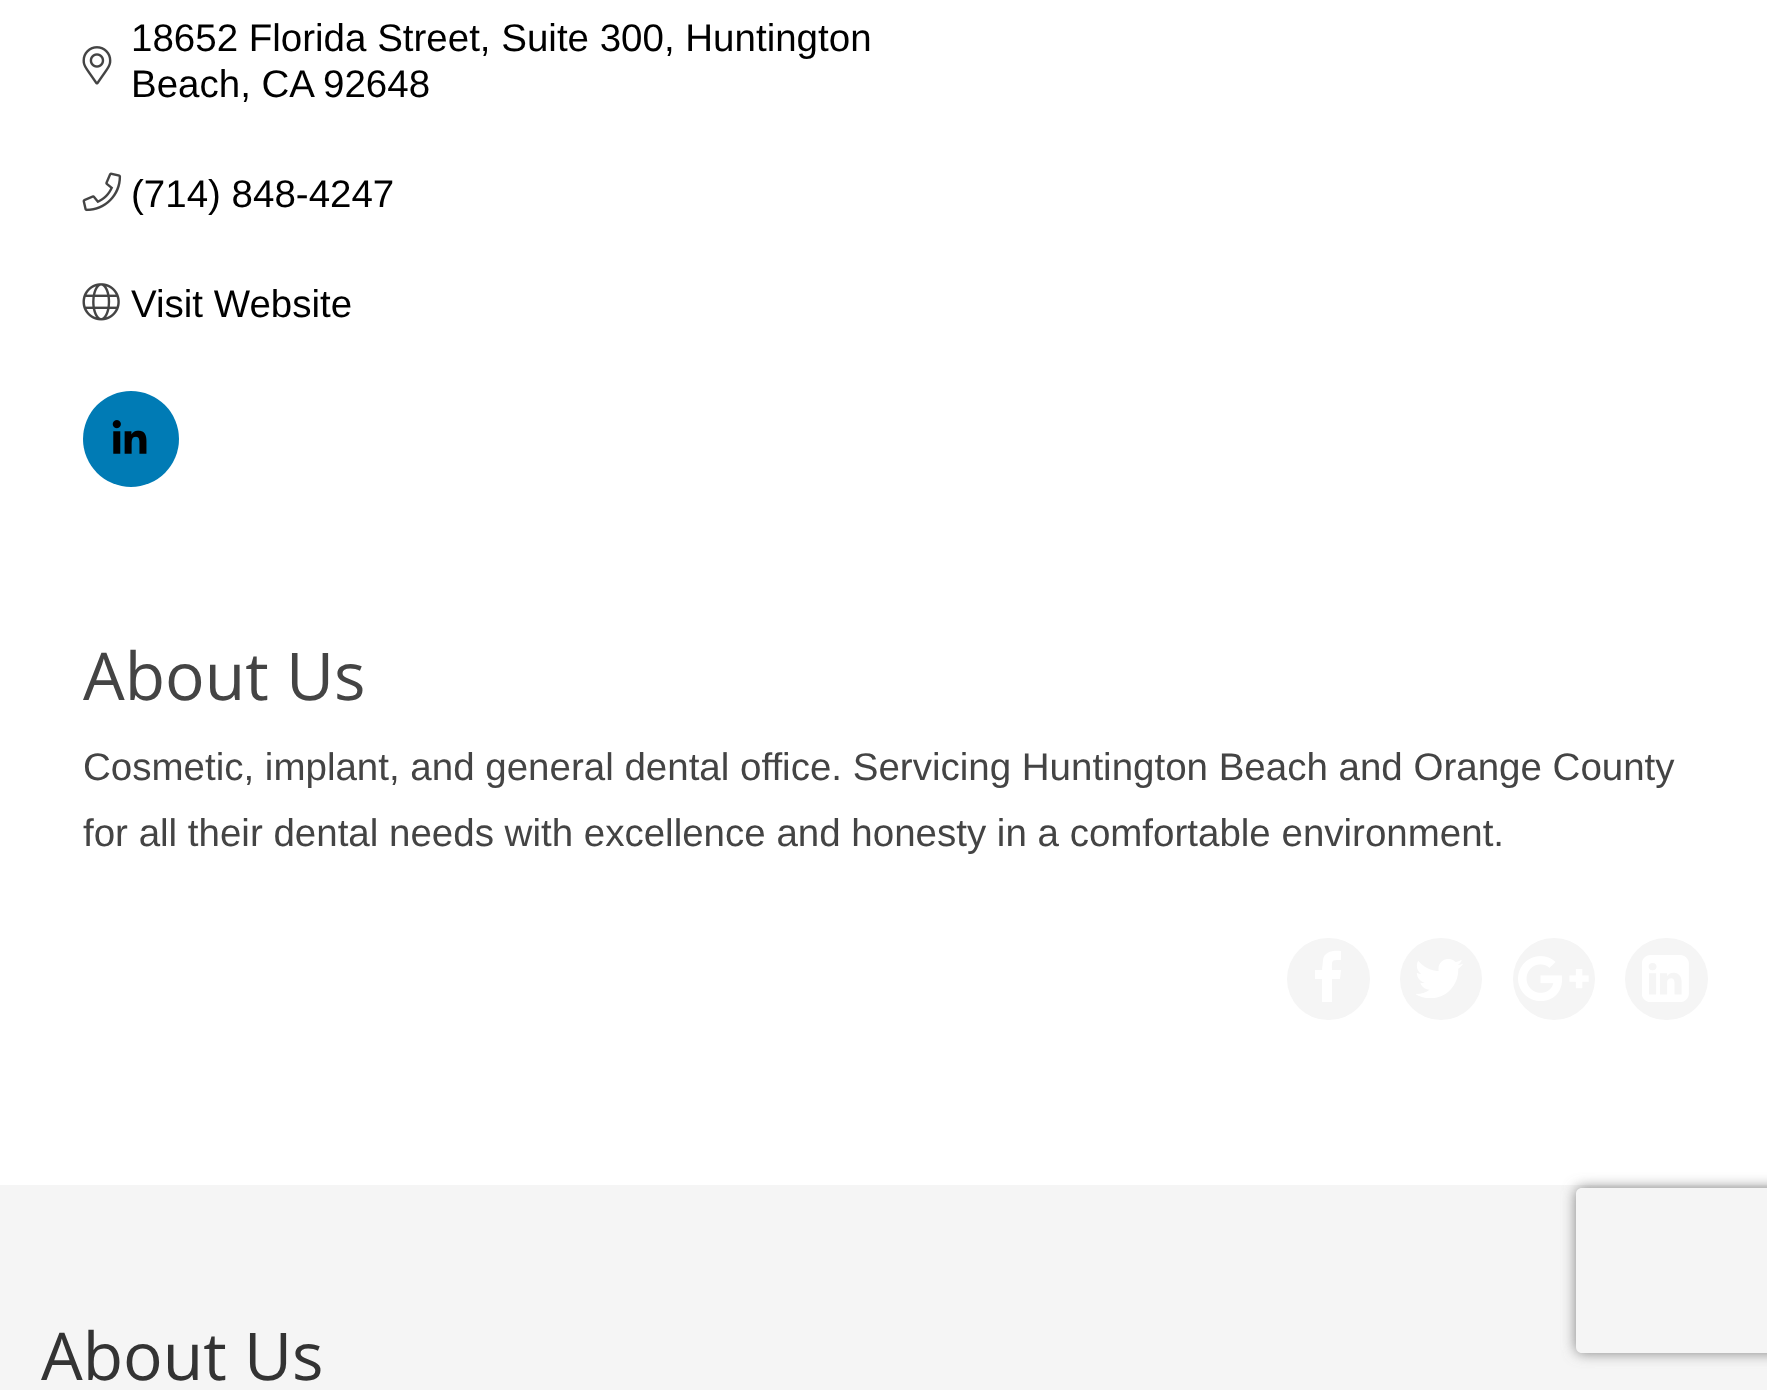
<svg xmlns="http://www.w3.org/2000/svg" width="1767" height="1390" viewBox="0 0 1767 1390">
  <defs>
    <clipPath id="clip1"><path d="M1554 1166H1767V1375H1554ZM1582 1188H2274C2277.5 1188 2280 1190.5 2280 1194V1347C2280 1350.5 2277.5 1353 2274 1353H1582C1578.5 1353 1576 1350.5 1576 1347V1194C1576 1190.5 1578.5 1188 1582 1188Z" clip-rule="evenodd"/></clipPath>
    <filter id="blur1" x="-50%" y="-200%" width="200%" height="500%"><feGaussianBlur stdDeviation="7"/></filter>
  </defs>
  <rect width="100%" height="100%" fill="#ffffff"/>
  <text x="131" y="51" font-family="Liberation Sans" font-size="38.5" fill="#000000">18652 Florida Street, Suite 300, Huntington</text>
  <image x="82" y="46" width="30" height="39" href="img1.png"/>
  <text x="131" y="97" font-family="Liberation Sans" font-size="38.5" fill="#000000">Beach, CA</text>
  <text x="323" y="97" font-family="Liberation Sans" font-size="38.5" fill="#000000">92648</text>
  <image x="82" y="172" width="40" height="40" href="img2.png"/>
  <text x="131" y="207" font-family="Liberation Sans" font-size="38.5" fill="#000000">(714) 848-4247</text>
  <image x="82" y="283" width="38" height="38" href="img3.png"/>
  <text x="131" y="317" font-family="Liberation Sans" font-size="38.5" fill="#000000">Visit Website</text>
  <circle cx="131" cy="439" r="48" fill="#007bb5"/>
  <image x="112" y="420" width="35" height="34" href="img4.png"/>
  <text x="83" y="700" font-family="Open Sans" font-size="66" fill="#444444">About Us</text>
  <text x="83" y="780" font-family="Liberation Sans" font-size="38.5" fill="#444444">Cosmetic, implant, and general dental office. Servicing Huntington Beach and Orange County</text>
  <text x="83" y="846" font-family="Liberation Sans" font-size="38.5" fill="#444444">for all their dental needs with excellence and honesty in a comfortable environment.</text>
  <rect x="1287" y="938" width="83" height="82" rx="41" fill="#f5f5f5"/>
  <path d="M1341 951V960C1331 960 1332 960 1332 970H1341L1340 979H1332V1002H1322V979H1315V970H1322L1323 960C1324 951 1334 950 1341 951Z" fill="#ffffff"/>
  <circle cx="1441" cy="979" r="41" fill="#f5f5f5"/>
  <image x="1416" y="959" width="47" height="39" href="img5.png"/>
  <circle cx="1554" cy="979" r="41" fill="#f5f5f5"/>
  <image x="1518" y="956" width="71" height="45" href="img6.png"/>
  <rect x="1625" y="938" width="83" height="82" rx="41" fill="#f5f5f5"/>
  <image x="1642" y="955" width="47" height="47" href="img7.png"/>
  <rect x="0" y="1185" width="1767" height="205" fill="#f5f5f5"/>
  <text x="41" y="1380" font-family="Open Sans" font-size="66" fill="#333333">About Us</text>
  <g clip-path="url(#clip1)">
    <rect x="1576" y="1188" width="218" height="165" rx="6" fill="#808080" filter="url(#blur1)"/>
  </g>
</svg>
